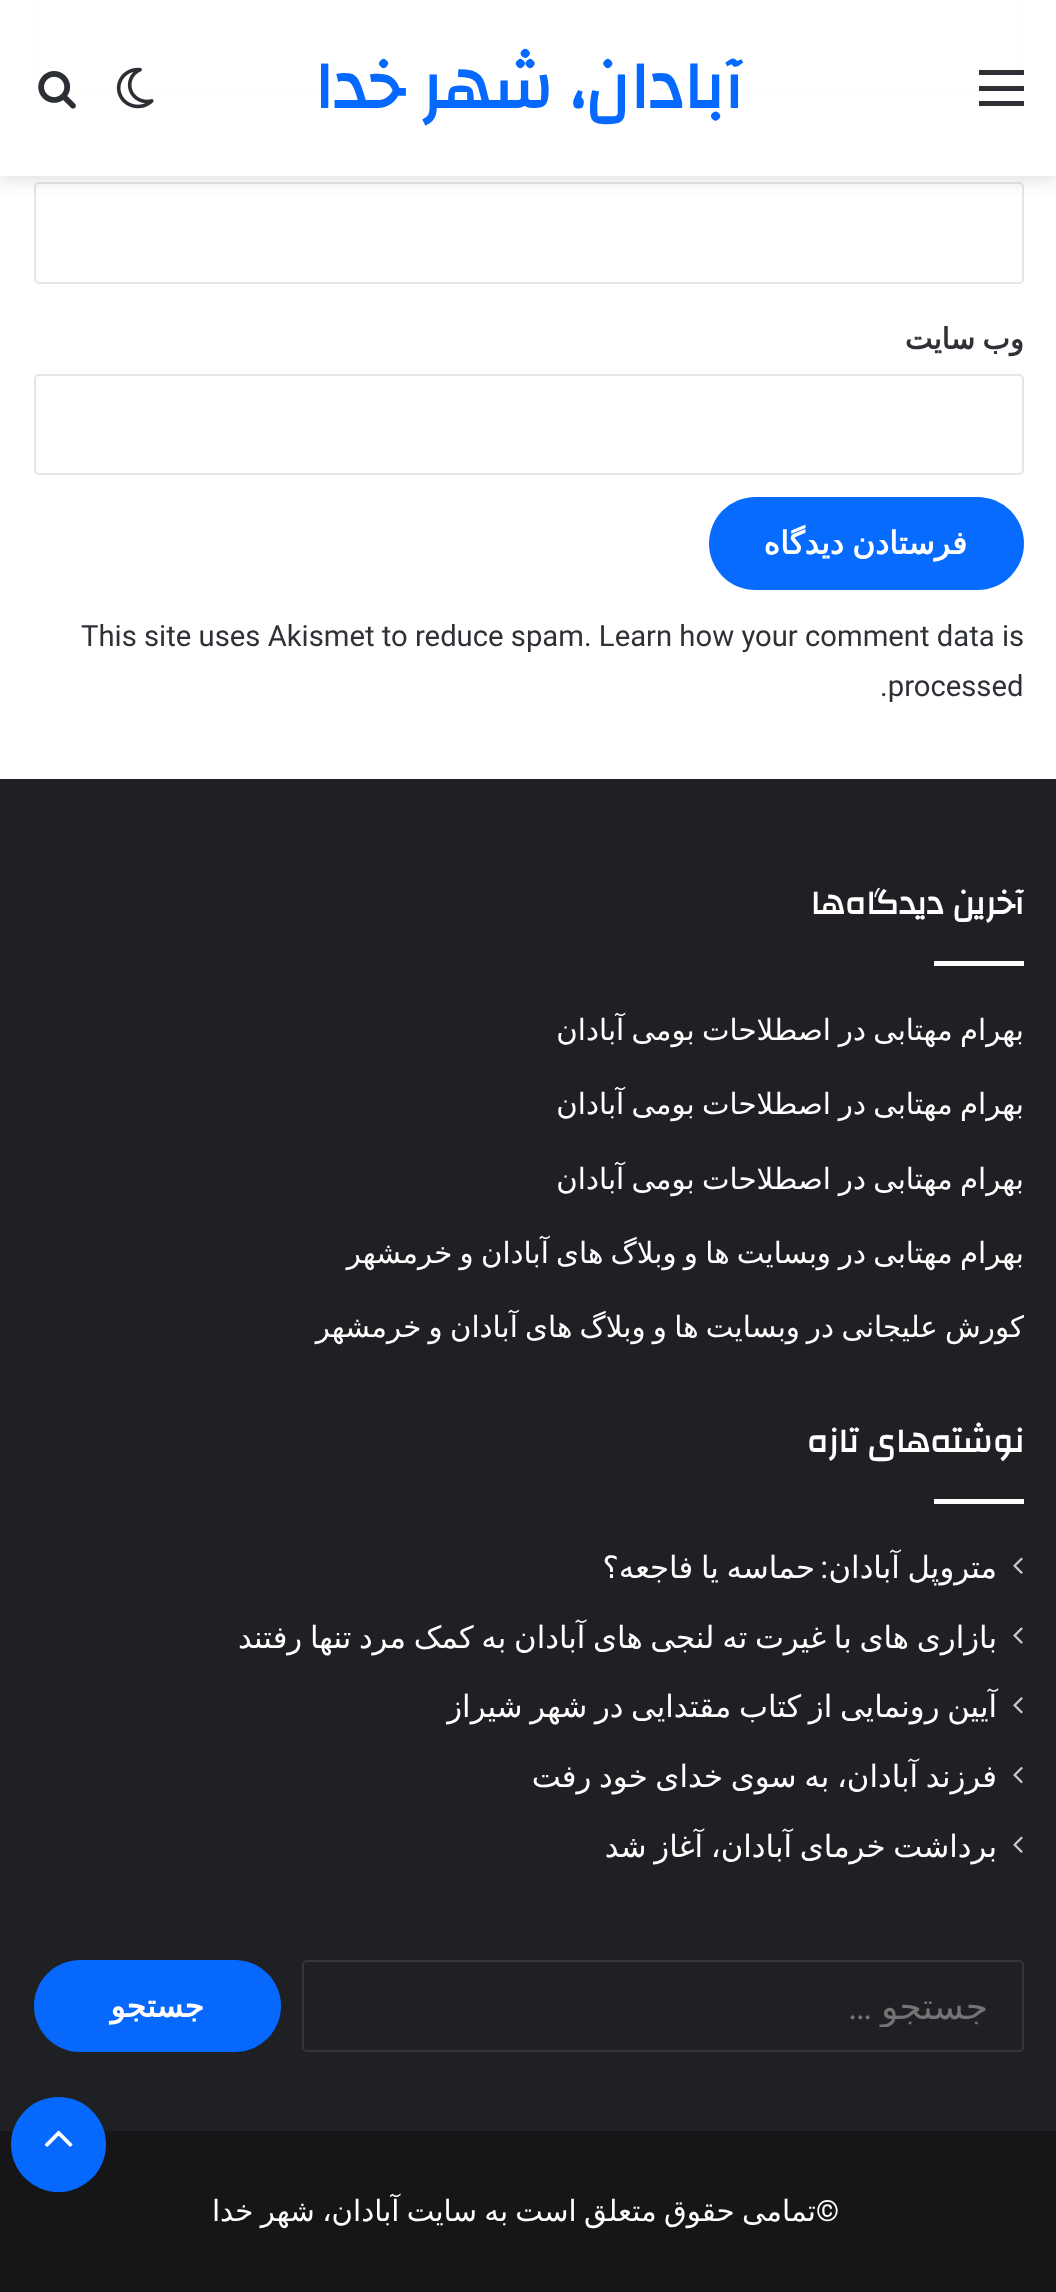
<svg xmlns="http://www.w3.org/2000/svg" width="1056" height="2292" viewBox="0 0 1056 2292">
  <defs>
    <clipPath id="clip1"><path d="M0 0H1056V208H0ZM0 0H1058V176H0Z" clip-rule="evenodd"/></clipPath>
    <filter id="blur1" x="-50%" y="-200%" width="200%" height="500%"><feGaussianBlur stdDeviation="9"/></filter>
    <clipPath id="clip2"><rect x="347" y="1985" width="641" height="42"/></clipPath>
  </defs>
  <rect width="100%" height="100%" fill="#ffffff"/>
  <rect x="35" y="-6" width="988" height="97" rx="4" fill="none" stroke="#e6e6e6" stroke-width="2"/>
  <rect x="35" y="183" width="988" height="100" rx="4" fill="none" stroke="#e6e6e6" stroke-width="2"/>
  <g clip-path="url(#clip1)">
    <rect x="0" y="5" width="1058" height="175" fill="#636363" fill-opacity="0.2" filter="url(#blur1)"/>
  </g>
  <rect x="0" y="0" width="1056" height="176" fill="#ffffff" fill-opacity="0.95"/>
  <rect x="979" y="86" width="45" height="5" fill="#2c2f34"/>
  <rect x="979" y="70" width="45" height="5" fill="#2c2f34"/>
  <rect x="979" y="101" width="45" height="5" fill="#2c2f34"/>
  <text x="743" y="108" font-family="Changa" font-size="67.5" font-weight="bold" direction="rtl" fill="#0669ff">آبادان، شهر خدا</text>
  <image x="116" y="67" width="38" height="42" href="img1.png"/>
  <image x="38" y="71" width="38" height="38" href="img2.png"/>
  <text x="1024" y="349" word-spacing="-2" font-family="DejaVu Sans" font-size="29.25" font-weight="bold" direction="rtl" fill="#2e3136">وب‌ سایت</text>
  <rect x="35" y="375" width="988" height="99" rx="4" fill="none" stroke="#e6e6e6" stroke-width="2"/>
  <rect x="709" y="497" width="315" height="93" rx="46.5" fill="#086bff"/>
  <text x="967" y="554" word-spacing="-2" font-family="DejaVu Sans" font-size="31.5" font-weight="bold" direction="rtl" fill="#ffffff">فرستادن دیدگاه</text>
  <text x="81" y="646" font-family="Roboto" font-size="29.25" fill="#2e3136">This site uses Akismet to reduce spam. Learn how your comment data is</text>
  <text x="880" y="696" font-family="Roboto" font-size="29.25" fill="#2e3136">.processed</text>
  <rect x="0" y="779" width="1056" height="1352" fill="#1f2024"/>
  <text x="1024" y="914" font-family="Changa" font-size="33.75" font-weight="bold" direction="rtl" fill="#ffffff">آخرین دیدگاه‌ها</text>
  <rect x="934" y="961" width="90" height="5" fill="#fdfdfd"/>
  <text x="1024" y="1040" word-spacing="-2" font-family="DejaVu Sans" font-size="29.25" direction="rtl" fill="#ffffff">بهرام مهتابی</text>
  <text x="866" y="1040" font-family="DejaVu Sans" font-size="29.25" direction="rtl" fill="#ffffff">در</text>
  <text x="831" y="1040" word-spacing="-2" font-family="DejaVu Sans" font-size="29.25" direction="rtl" fill="#ffffff">اصطلاحات بومی آبادان</text>
  <text x="1024" y="1114" word-spacing="-2" font-family="DejaVu Sans" font-size="29.25" direction="rtl" fill="#ffffff">بهرام مهتابی</text>
  <text x="866" y="1114" font-family="DejaVu Sans" font-size="29.25" direction="rtl" fill="#ffffff">در</text>
  <text x="831" y="1114" word-spacing="-2" font-family="DejaVu Sans" font-size="29.25" direction="rtl" fill="#ffffff">اصطلاحات بومی آبادان</text>
  <text x="1024" y="1189" word-spacing="-2" font-family="DejaVu Sans" font-size="29.25" direction="rtl" fill="#ffffff">بهرام مهتابی</text>
  <text x="866" y="1189" font-family="DejaVu Sans" font-size="29.25" direction="rtl" fill="#ffffff">در</text>
  <text x="831" y="1189" word-spacing="-2" font-family="DejaVu Sans" font-size="29.25" direction="rtl" fill="#ffffff">اصطلاحات بومی آبادان</text>
  <text x="1024" y="1263" word-spacing="-2" font-family="DejaVu Sans" font-size="29.25" direction="rtl" fill="#ffffff">بهرام مهتابی</text>
  <text x="866" y="1263" font-family="DejaVu Sans" font-size="29.25" direction="rtl" fill="#ffffff">در</text>
  <text x="831" y="1263" word-spacing="-2" font-family="DejaVu Sans" font-size="29.25" direction="rtl" fill="#ffffff">وبسایت ها و وبلاگ های آبادان و خرمشهر</text>
  <text x="1024" y="1337" word-spacing="-2" font-family="DejaVu Sans" font-size="29.25" direction="rtl" fill="#ffffff">کورش علیجانی</text>
  <text x="834" y="1337" font-family="DejaVu Sans" font-size="29.25" direction="rtl" fill="#ffffff">در</text>
  <text x="800" y="1337" word-spacing="-2" font-family="DejaVu Sans" font-size="29.25" direction="rtl" fill="#ffffff">وبسایت ها و وبلاگ های آبادان و خرمشهر</text>
  <text x="1024" y="1452" font-family="Changa" font-size="33.75" font-weight="bold" direction="rtl" fill="#ffffff">نوشته‌های تازه</text>
  <rect x="934" y="1499" width="90" height="5" fill="#fdfdfd"/>
  <image x="1013" y="1557" width="10" height="17" href="img3.png"/>
  <text x="997" y="1578" word-spacing="-2" font-family="DejaVu Sans" font-size="30.75" direction="rtl" fill="#ffffff">متروپل آبادان</text>
  <text x="828" y="1578" font-family="Roboto" font-size="30.75" direction="rtl" fill="#ffffff">:</text>
  <text x="815" y="1578" word-spacing="-2" font-family="DejaVu Sans" font-size="30.75" direction="rtl" fill="#ffffff">حماسه یا فاجعه؟</text>
  <image x="1013" y="1627" width="10" height="17" href="img4.png"/>
  <text x="997" y="1648" word-spacing="-2.1" font-family="DejaVu Sans" font-size="30.75" direction="rtl" fill="#ffffff">بازاری های با غیرت ته لنجی های آبادان به کمک مرد تنها رفتند</text>
  <image x="1013" y="1697" width="10" height="17" href="img5.png"/>
  <text x="997" y="1717" word-spacing="-2.1" font-family="DejaVu Sans" font-size="30.75" direction="rtl" fill="#ffffff">آیین رونمایی از کتاب مقتدایی در شهر شیراز</text>
  <image x="1013" y="1766" width="10" height="18" href="img6.png"/>
  <text x="997" y="1787" word-spacing="-2.1" font-family="DejaVu Sans" font-size="30.75" direction="rtl" fill="#ffffff">فرزند آبادان، به سوی خدای خود رفت</text>
  <image x="1013" y="1836" width="10" height="17" href="img3.png"/>
  <text x="997" y="1857" word-spacing="-2.1" font-family="DejaVu Sans" font-size="30.75" direction="rtl" fill="#ffffff">برداشت خرمای آبادان، آغاز شد</text>
  <rect x="303" y="1961" width="720" height="90" rx="4" fill="none" stroke="#35363a" stroke-width="2"/>
  <g clip-path="url(#clip2)">
    <text x="988" y="2019" font-family="DejaVu Sans" font-size="36" direction="rtl" fill="#747474">جستجو</text>
  </g>
  <text x="872" y="2019" font-family="Roboto" font-size="36" direction="rtl" fill="#747474">…</text>
  <rect x="34" y="1960" width="247" height="92" rx="46" fill="#0668fd"/>
  <text x="204" y="2017" font-family="DejaVu Sans" font-size="31.5" font-weight="bold" direction="rtl" fill="#ffffff">جستجو</text>
  <rect x="0" y="2131" width="1056" height="161" fill="#161619"/>
  <text x="816" y="2221" font-family="Roboto" font-size="29.25" fill="#ffffff">©</text>
  <text x="816" y="2221" word-spacing="-2" font-family="DejaVu Sans" font-size="29.25" direction="rtl" fill="#ffffff">تمامی حقوق متعلق است به</text>
  <text x="477" y="2221" word-spacing="-2" font-family="DejaVu Sans" font-size="29.25" direction="rtl" fill="#ffffff">سایت آبادان، شهر خدا</text>
  <circle cx="58.5" cy="2144.5" r="47.5" fill="#0669ff"/>
  <image x="44" y="2130" width="29" height="17" href="img7.png"/>
</svg>
